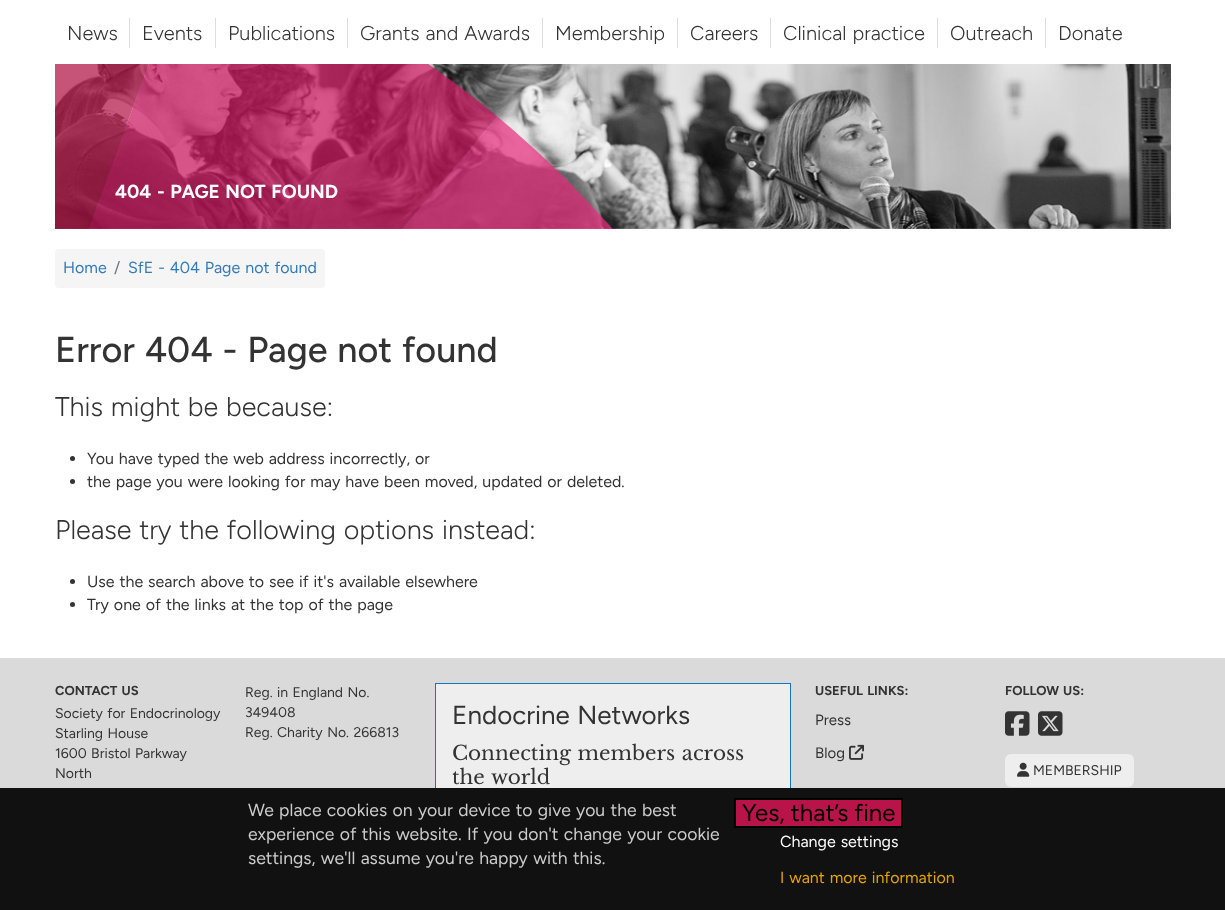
<svg xmlns="http://www.w3.org/2000/svg" width="1225" height="910" viewBox="0 0 1225 910">
  <rect width="100%" height="100%" fill="#ffffff"/>
  <rect x="129" y="18" width="1" height="30" fill="#dddddd"/>
  <text x="67" y="40" font-family="Figtree" font-size="20" font-weight="300" fill="#333333">News</text>
  <rect x="215" y="18" width="1" height="30" fill="#dddddd"/>
  <text x="142" y="40" font-family="Figtree" font-size="20" font-weight="300" fill="#333333">Events</text>
  <rect x="347" y="18" width="1" height="30" fill="#dddddd"/>
  <text x="228" y="40" font-family="Figtree" font-size="20" font-weight="300" fill="#333333">Publications</text>
  <rect x="542" y="18" width="1" height="30" fill="#dddddd"/>
  <text x="360" y="40" word-spacing="1" font-family="Figtree" font-size="20" font-weight="300" fill="#333333">Grants and Awards</text>
  <rect x="677" y="18" width="1" height="30" fill="#dddddd"/>
  <text x="555" y="40" font-family="Figtree" font-size="20" font-weight="300" fill="#333333">Membership</text>
  <rect x="770" y="18" width="1" height="30" fill="#dddddd"/>
  <text x="690" y="40" font-family="Figtree" font-size="20" font-weight="300" fill="#333333">Careers</text>
  <rect x="937" y="18" width="1" height="30" fill="#dddddd"/>
  <text x="783" y="40" word-spacing="1" font-family="Figtree" font-size="20" font-weight="300" fill="#333333">Clinical practice</text>
  <rect x="1045" y="18" width="1" height="30" fill="#dddddd"/>
  <text x="950" y="40" font-family="Figtree" font-size="20" font-weight="300" fill="#333333">Outreach</text>
  <text x="1058" y="40" font-family="Figtree" font-size="20" font-weight="300" fill="#333333">Donate</text>
  <image x="55" y="64" width="1116" height="165" href="img1.png"/>
  <text x="115" y="198" word-spacing="1" font-family="Figtree" font-size="19" font-weight="bold" fill="#ffffff">404 - PAGE NOT FOUND</text>
  <rect x="55" y="249" width="270" height="39" rx="4" fill="#f5f5f5"/>
  <text x="63" y="273" font-family="Figtree" font-size="16" fill="#337ab7">Home</text>
  <text x="114" y="273" font-family="Figtree" font-size="16" fill="#6c757d">/</text>
  <text x="128" y="273" word-spacing="1" font-family="Figtree" font-size="16" fill="#337ab7">SfE - 404 Page not found</text>
  <text x="55" y="362" word-spacing="1" font-family="Figtree" font-size="36" font-weight="500" fill="#333333">Error 404 - Page not found</text>
  <text x="55" y="416" word-spacing="1" font-family="Figtree" font-size="27" font-weight="300" fill="#333333">This might be because:</text>
  <circle cx="72.5" cy="458.5" r="2.5" fill="#333333"/>
  <text x="87" y="464" word-spacing="1" font-family="Figtree" font-size="16" fill="#333333">You have typed the web address incorrectly, or</text>
  <circle cx="72.5" cy="481.5" r="2.5" fill="#333333"/>
  <text x="87" y="487" word-spacing="1" font-family="Figtree" font-size="16" fill="#333333">the page you were looking for may have been moved, updated or deleted.</text>
  <text x="55" y="539" word-spacing="1" font-family="Figtree" font-size="27" font-weight="300" fill="#333333">Please try the following options instead:</text>
  <circle cx="72.5" cy="581.5" r="2.5" fill="#333333"/>
  <text x="87" y="587" word-spacing="1" font-family="Figtree" font-size="16" fill="#333333">Use the search above to see if it's available elsewhere</text>
  <circle cx="72.5" cy="604.5" r="2.5" fill="#333333"/>
  <text x="87" y="610" word-spacing="1" font-family="Figtree" font-size="16" fill="#333333">Try one of the links at the top of the page</text>
  <rect x="0" y="658" width="1225" height="130" fill="#dadada"/>
  <text x="55" y="695" word-spacing="1" font-family="Figtree" font-size="13" font-weight="bold" fill="#333333">CONTACT US</text>
  <text x="55" y="718" word-spacing="1" font-family="Figtree" font-size="14" fill="#333333">Society for Endocrinology</text>
  <text x="55" y="738" word-spacing="1" font-family="Figtree" font-size="14" fill="#333333">Starling House</text>
  <text x="55" y="758" word-spacing="1" font-family="Figtree" font-size="14" fill="#333333">1600 Bristol Parkway</text>
  <text x="55" y="778" font-family="Figtree" font-size="14" fill="#333333">North</text>
  <text x="245" y="697" word-spacing="1" font-family="Figtree" font-size="14" fill="#333333">Reg. in England No.</text>
  <text x="245" y="717" font-family="Figtree" font-size="14" fill="#333333">349408</text>
  <text x="245" y="737" word-spacing="1" font-family="Figtree" font-size="14" fill="#333333">Reg. Charity No. 266813</text>
  <rect x="436" y="684" width="354" height="104" fill="#eeeeee"/>
  <rect x="435.5" y="683.5" width="355" height="170" fill="none" stroke="#1475ba"/>
  <text x="452" y="724" word-spacing="1" font-family="Figtree" font-size="26" fill="#333333">Endocrine Networks</text>
  <text x="452" y="760" word-spacing="1" font-family="Libre Baskerville" font-size="20" fill="#333333">Connecting members across</text>
  <text x="452" y="784" word-spacing="1" font-family="Libre Baskerville" font-size="20" fill="#333333">the world</text>
  <text x="815" y="695" word-spacing="1" font-family="Figtree" font-size="13" font-weight="bold" fill="#333333">USEFUL LINKS:</text>
  <text x="815" y="725" font-family="Figtree" font-size="15" fill="#333333">Press</text>
  <text x="815" y="758" font-family="Figtree" font-size="15" fill="#333333">Blog</text>
  <image x="849" y="744" width="15" height="16" href="img2.png"/>
  <text x="1005" y="695" word-spacing="1" font-family="Figtree" font-size="13" font-weight="bold" fill="#333333">FOLLOW US:</text>
  <image x="1005" y="711" width="25" height="25" href="img3.png"/>
  <image x="1038" y="711" width="25" height="25" href="img4.png"/>
  <rect x="1005" y="754" width="129" height="33" rx="6" fill="#eeeeee"/>
  <image x="1017" y="762" width="13" height="15" href="img5.png"/>
  <text x="1033" y="775" font-family="Figtree" font-size="14" fill="#333333">MEMBERSHIP</text>
  <rect x="0" y="788" width="1225" height="122" fill="#111111"/>
  <text x="248" y="816" word-spacing="1" font-family="Figtree" font-size="17.6" fill="#cccccc">We place cookies on your device to give you the best</text>
  <text x="248" y="840" word-spacing="1" font-family="Figtree" font-size="17.6" fill="#cccccc">experience of this website. If you don't change your cookie</text>
  <text x="248" y="864" word-spacing="1" font-family="Figtree" font-size="17.6" fill="#cccccc">settings, we'll assume you're happy with this.</text>
  <rect x="735" y="799" width="167" height="28" fill="#b81449" stroke="#000000" stroke-width="2"/>
  <text x="742" y="821" font-family="Figtree" font-size="24" fill="#000000">Yes, that’s fine</text>
  <text x="780" y="847" word-spacing="1" font-family="Figtree" font-size="16" fill="#ffffff">Change settings</text>
  <text x="780" y="883" word-spacing="1" font-family="Figtree" font-size="16" fill="#e7a500">I want more information</text>
</svg>
